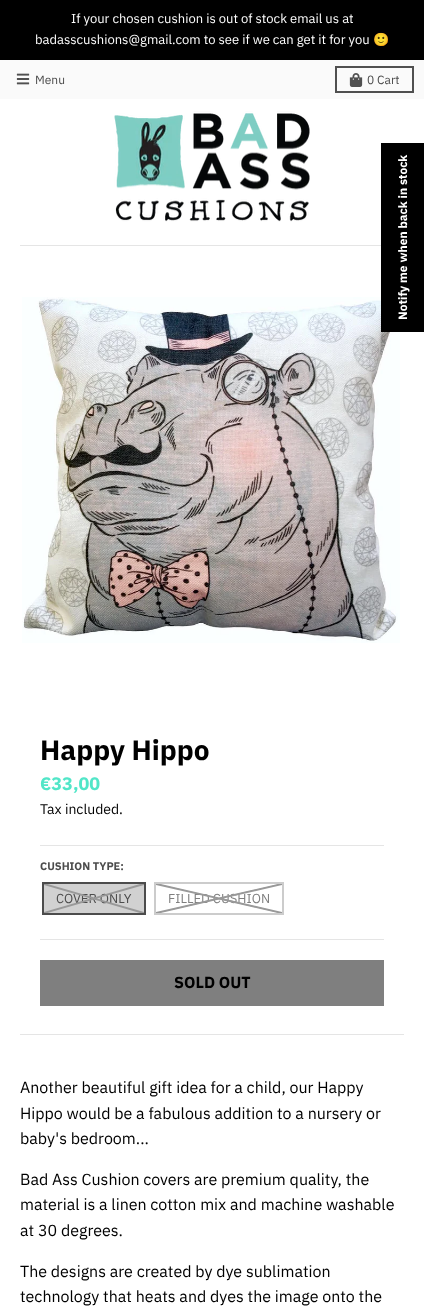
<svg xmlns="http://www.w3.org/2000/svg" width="424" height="1306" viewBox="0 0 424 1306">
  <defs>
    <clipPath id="clip1"><rect x="44" y="884" width="100" height="29"/></clipPath>
    <clipPath id="clip2"><rect x="156" y="884" width="126" height="29"/></clipPath>
  </defs>
  <rect width="100%" height="100%" fill="#ffffff"/>
  <rect x="0" y="0" width="424" height="60" fill="#000000"/>
  <text x="71" y="23" font-family="IBM Plex Sans" font-size="13" fill="#ffffff">If your chosen cushion is out of stock email us at</text>
  <text x="35" y="44" font-family="IBM Plex Sans" font-size="13" fill="#ffffff">badasscushions@gmail.com to see if we can get it for you</text>
  <text x="373" y="44" font-family="Noto Color Emoji" font-size="13" fill="#ffffff">🙂</text>
  <rect x="0" y="60" width="424" height="39" fill="#fafafa"/>
  <image x="16" y="73" width="14" height="12" href="img1.png"/>
  <text x="35" y="84" font-family="IBM Plex Sans" font-size="12" fill="#4c4c4c">Menu</text>
  <rect x="336" y="67" width="77" height="25" fill="none" stroke="#505050" stroke-width="2"/>
  <image x="349" y="73" width="14" height="14" href="img2.png"/>
  <text x="367" y="84" font-family="IBM Plex Sans" font-size="12" fill="#4c4c4c">0 Cart</text>
  <image x="114" y="111" width="196" height="111" href="img3.png"/>
  <rect x="20" y="245" width="361" height="1" fill="#e5e5e5"/>
  <image x="22" y="297" width="378" height="346" href="img4.png"/>
  <rect x="20" y="1034" width="384" height="1" fill="#e5e5e5"/>
  <text x="40" y="760" font-family="IBM Plex Sans" font-size="28" font-weight="bold" fill="#000000">Happy Hippo</text>
  <rect x="40" y="845" width="344" height="1" fill="#e5e5e5"/>
  <text x="40" y="790" font-family="IBM Plex Sans" font-size="18" font-weight="bold" fill="#51e6c8">€33,00</text>
  <text x="40" y="814" font-family="IBM Plex Sans" font-size="14" fill="#000000">Tax included.</text>
  <rect x="40" y="939" width="344" height="1" fill="#e5e5e5"/>
  <text x="40" y="870" font-family="IBM Plex Sans" font-size="11" font-weight="bold" fill="#4c4c4c">CUSHION TYPE:</text>
  <rect x="43" y="883" width="102" height="31" fill="#d1d1d1" stroke="#4c4c4c" stroke-width="2"/>
  <text x="56" y="903" font-family="IBM Plex Sans" font-size="13" fill="#4c4c4c">COVER ONLY</text>
  <g clip-path="url(#clip1)">
    <path d="M142 884H143.5V884.5L95 898.5L143.5 912.5V913H142L94 899L45.5 913H44V912.5L92.5 898.5L44 884.5V884H45.5L94 898Z" fill="none" stroke="#999999" stroke-width="1.1"/>
  </g>
  <rect x="155" y="883" width="128" height="31" fill="none" stroke="#cccccc" stroke-width="2"/>
  <text x="168" y="903" font-family="IBM Plex Sans" font-size="13" fill="#7f7f7f">FILLED CUSHION</text>
  <path d="M280 884H282L221 898L282 913H280L219 899L158 913H156L217 898L156 884H158L219 898Z" fill="#979797"/>
  <g clip-path="url(#clip2)">
    <path d="M280.5 884H282V884.5L221 898.5L282 912.5V913H280.5L219 899L158 913H156V912.5L217.5 898.5L156 884.5V884H158L219 898Z" fill="none" stroke="#999999" stroke-width="1.2"/>
  </g>
  <rect x="40" y="960" width="344" height="46" fill="#7f7f7f"/>
  <text x="174" y="988" font-family="IBM Plex Sans" font-size="16" font-weight="bold" fill="#000000">SOLD OUT</text>
  <text x="20" y="1093" font-family="IBM Plex Sans" font-size="16" fill="#000000">Another beautiful gift idea for a child, our Happy</text>
  <text x="20" y="1119" font-family="IBM Plex Sans" font-size="16" fill="#000000">Hippo would be a fabulous addition to a nursery or</text>
  <text x="20" y="1144" font-family="IBM Plex Sans" font-size="16" fill="#000000">baby's bedroom...</text>
  <text x="20" y="1185" font-family="IBM Plex Sans" font-size="16" fill="#000000">Bad Ass Cushion covers are premium quality, the</text>
  <text x="20" y="1210" font-family="IBM Plex Sans" font-size="16" fill="#000000">material is a linen cotton mix and machine washable</text>
  <text x="20" y="1236" font-family="IBM Plex Sans" font-size="16" fill="#000000">at 30 degrees.</text>
  <text x="20" y="1277" font-family="IBM Plex Sans" font-size="16" fill="#000000">The designs are created by dye sublimation</text>
  <text x="20" y="1302" font-family="IBM Plex Sans" font-size="16" fill="#000000">technology that heats and dyes the image onto the</text>
  <rect x="381" y="143" width="43" height="189" fill="#000000"/>
  <text x="407" y="320" transform="rotate(-90 407 320)" font-family="IBM Plex Sans" font-size="12" font-weight="bold" fill="#ffffff">Notify me when back in stock</text>
</svg>
